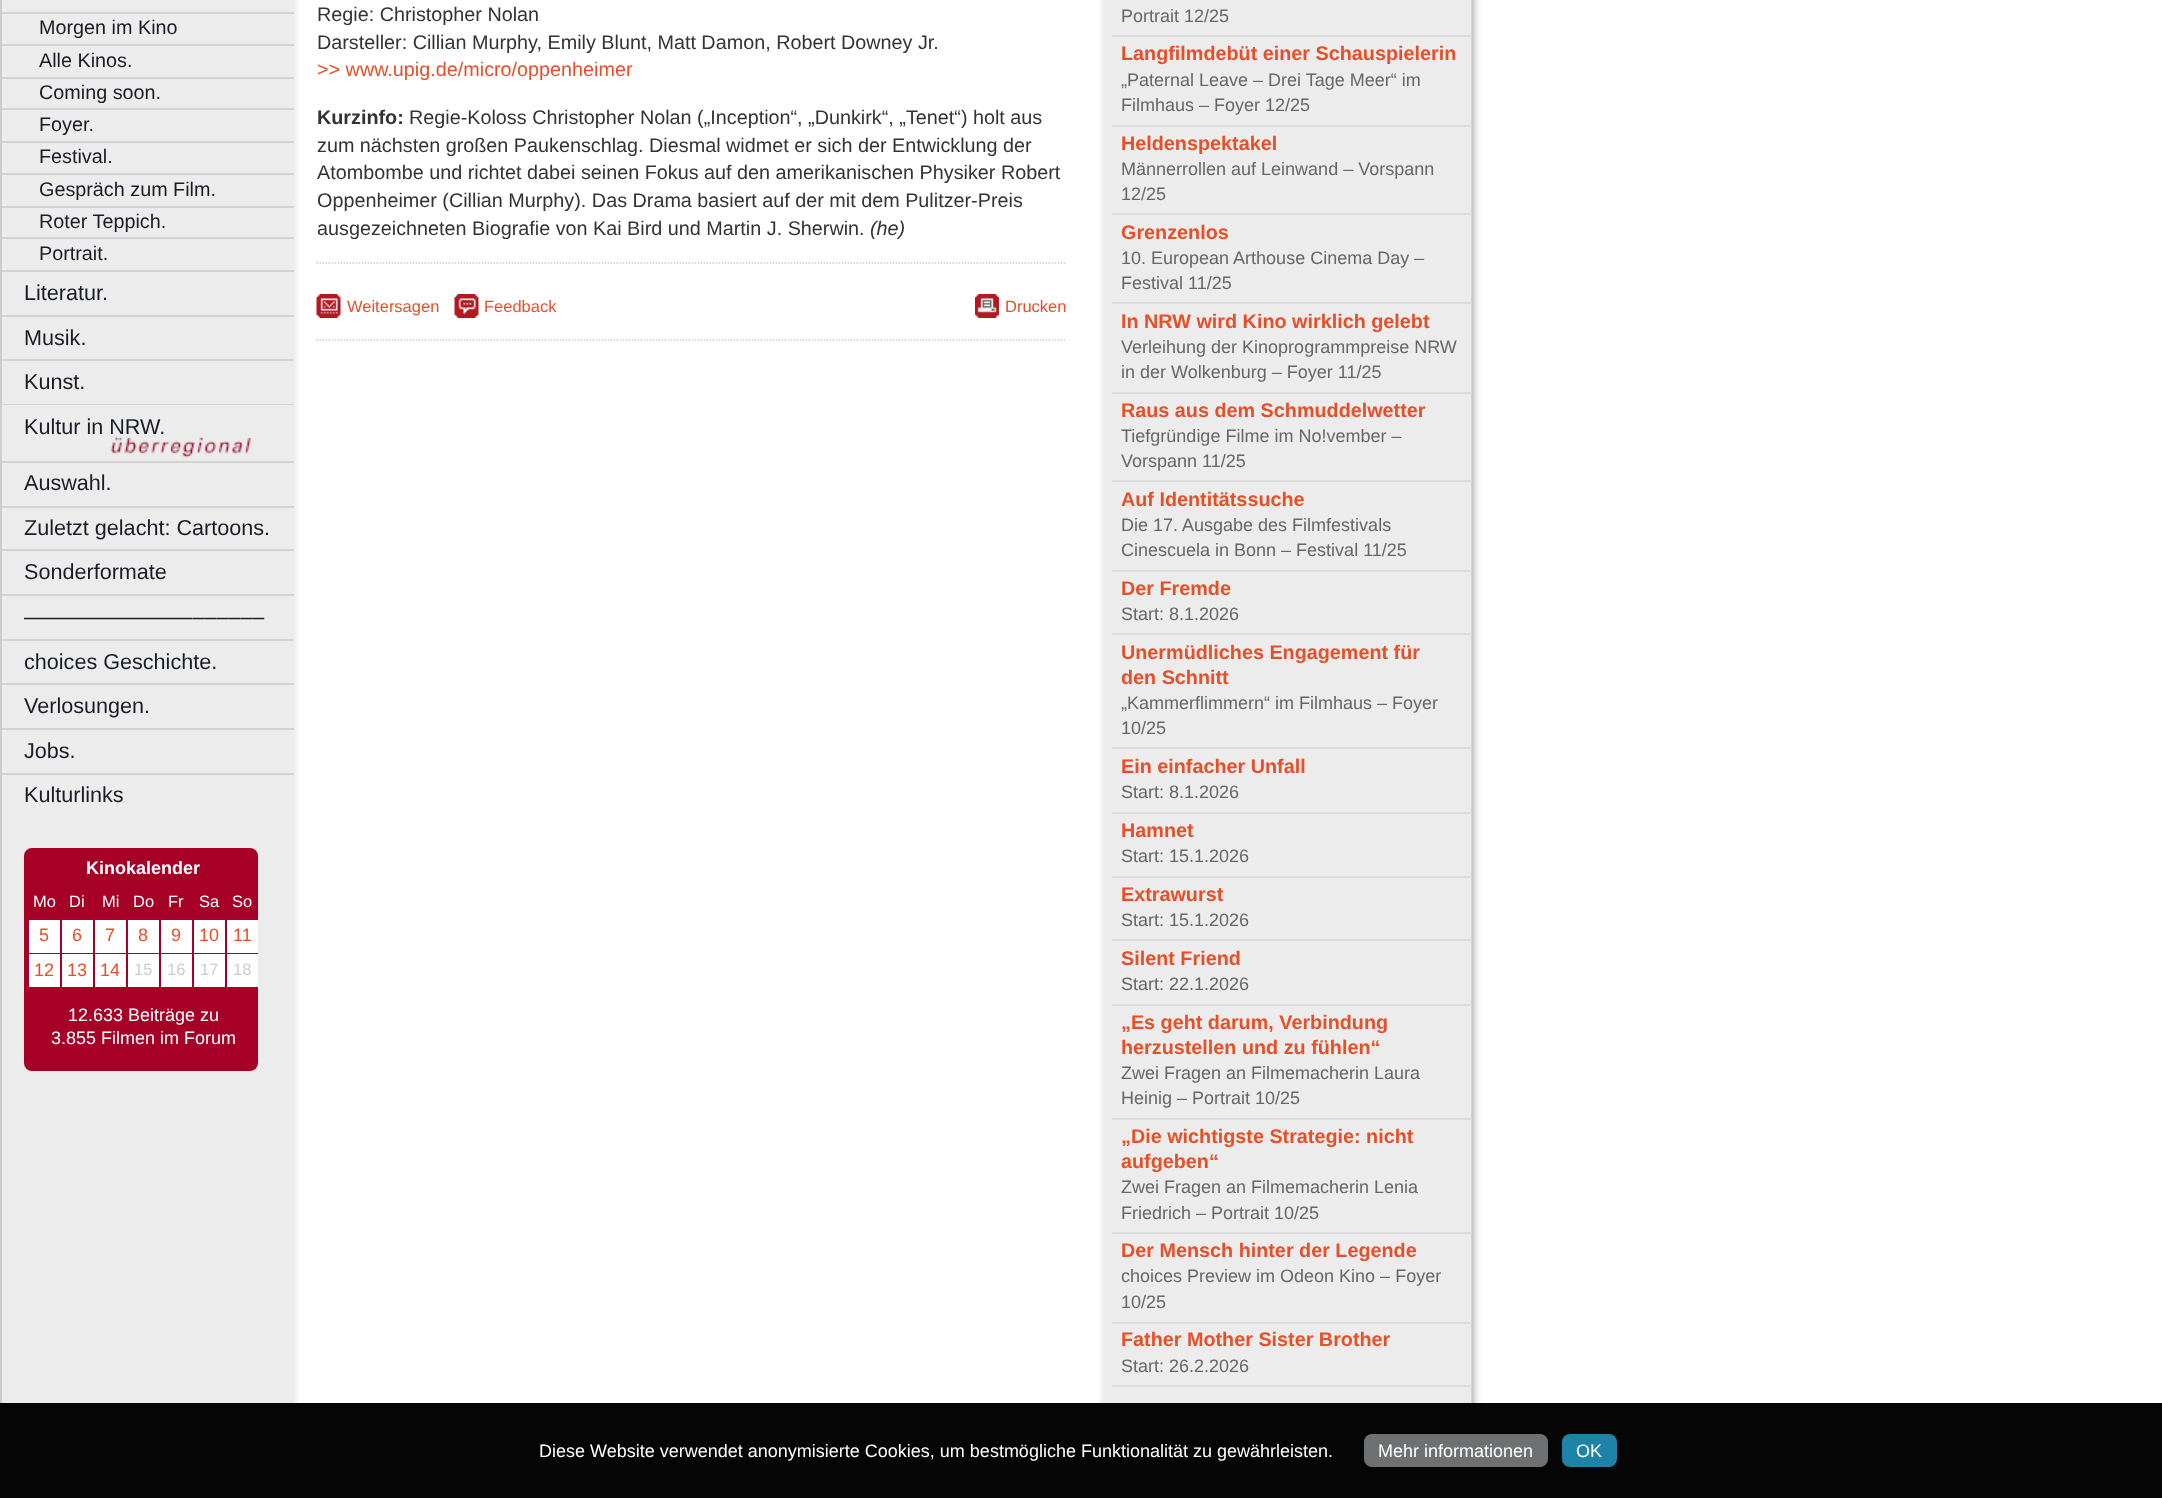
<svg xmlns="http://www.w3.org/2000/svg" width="2162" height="1498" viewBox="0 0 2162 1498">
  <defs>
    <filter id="blur1" x="-50%" y="-200%" width="200%" height="500%"><feGaussianBlur stdDeviation="4"/></filter>
  </defs>
  <rect width="100%" height="100%" fill="#ffffff"/>
  <rect x="2" y="-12" width="1471" height="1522" fill="#999999" filter="url(#blur1)"/>
  <image x="2" y="0" width="1470" height="1403" href="img1.png"/>
  <rect x="0" y="0" width="2" height="1403" fill="#cccccc"/>
  <rect x="2" y="12" width="292" height="2" fill="#d3d3d3"/>
  <text x="39" y="34" font-family="Liberation Sans" font-size="19.8" fill="#191c26">Morgen im Kino</text>
  <rect x="2" y="44" width="292" height="2" fill="#d3d3d3"/>
  <text x="39" y="67" font-family="Liberation Sans" font-size="19.8" fill="#191c26">Alle Kinos.</text>
  <rect x="2" y="77" width="292" height="2" fill="#d3d3d3"/>
  <text x="39" y="99" font-family="Liberation Sans" font-size="19.8" fill="#191c26">Coming soon.</text>
  <rect x="2" y="108" width="292" height="2" fill="#d3d3d3"/>
  <text x="39" y="131" font-family="Liberation Sans" font-size="19.8" fill="#191c26">Foyer.</text>
  <rect x="2" y="141" width="292" height="2" fill="#d3d3d3"/>
  <text x="39" y="163" font-family="Liberation Sans" font-size="19.8" fill="#191c26">Festival.</text>
  <rect x="2" y="173" width="292" height="2" fill="#d3d3d3"/>
  <text x="39" y="196" font-family="Liberation Sans" font-size="19.8" fill="#191c26">Gespräch zum Film.</text>
  <rect x="2" y="206" width="292" height="2" fill="#d3d3d3"/>
  <text x="39" y="228" font-family="Liberation Sans" font-size="19.8" fill="#191c26">Roter Teppich.</text>
  <rect x="2" y="237" width="292" height="2" fill="#d3d3d3"/>
  <text x="39" y="260" font-family="Liberation Sans" font-size="19.8" fill="#191c26">Portrait.</text>
  <rect x="2" y="270" width="292" height="2" fill="#d3d3d3"/>
  <text x="24" y="300" font-family="Liberation Sans" font-size="21.6" fill="#191c26">Literatur.</text>
  <rect x="2" y="315" width="292" height="2" fill="#d3d3d3"/>
  <text x="24" y="345" font-family="Liberation Sans" font-size="21.6" fill="#191c26">Musik.</text>
  <rect x="2" y="359" width="292" height="2" fill="#d3d3d3"/>
  <text x="24" y="389" font-family="Liberation Sans" font-size="21.6" fill="#191c26">Kunst.</text>
  <rect x="2" y="404" width="292" height="1" fill="#d3d3d3"/>
  <image x="1" y="405" width="293" height="54" href="img2.png"/>
  <text x="24" y="434" font-family="Liberation Sans" font-size="21.6" fill="#191c26">Kultur in NRW.</text>
  <rect x="2" y="461" width="292" height="2" fill="#d3d3d3"/>
  <text x="24" y="490" font-family="Liberation Sans" font-size="21.6" fill="#191c26">Auswahl.</text>
  <rect x="2" y="506" width="292" height="2" fill="#d3d3d3"/>
  <text x="24" y="535" font-family="Liberation Sans" font-size="21.6" fill="#191c26">Zuletzt gelacht: Cartoons.</text>
  <rect x="2" y="549" width="292" height="2" fill="#d3d3d3"/>
  <text x="24" y="579" font-family="Liberation Sans" font-size="21.6" fill="#191c26">Sonderformate</text>
  <rect x="2" y="594" width="292" height="2" fill="#d3d3d3"/>
  <text x="24" y="624" font-family="Liberation Sans" font-size="21.6" fill="#191c26">––––––––––––––––––––</text>
  <rect x="2" y="639" width="292" height="2" fill="#d3d3d3"/>
  <text x="24" y="669" font-family="Liberation Sans" font-size="21.6" fill="#191c26">choices Geschichte.</text>
  <rect x="2" y="683" width="292" height="2" fill="#d3d3d3"/>
  <text x="24" y="713" font-family="Liberation Sans" font-size="21.6" fill="#191c26">Verlosungen.</text>
  <rect x="2" y="728" width="292" height="2" fill="#d3d3d3"/>
  <text x="24" y="758" font-family="Liberation Sans" font-size="21.6" fill="#191c26">Jobs.</text>
  <rect x="2" y="773" width="292" height="2" fill="#d3d3d3"/>
  <text x="24" y="802" font-family="Liberation Sans" font-size="21.6" fill="#191c26">Kulturlinks</text>
  <rect x="24" y="848" width="234" height="223" rx="8" fill="#a60027"/>
  <text x="86" y="874" font-family="Liberation Sans" font-size="18" font-weight="bold" fill="#ffffff">Kinokalender</text>
  <text x="33" y="907" font-family="Liberation Sans" font-size="16.5" fill="#ffffff">Mo</text>
  <text x="69" y="907" font-family="Liberation Sans" font-size="16.5" fill="#ffffff">Di</text>
  <text x="102" y="907" font-family="Liberation Sans" font-size="16.5" fill="#ffffff">Mi</text>
  <text x="133" y="907" font-family="Liberation Sans" font-size="16.5" fill="#ffffff">Do</text>
  <text x="168" y="907" font-family="Liberation Sans" font-size="16.5" fill="#ffffff">Fr</text>
  <text x="199" y="907" font-family="Liberation Sans" font-size="16.5" fill="#ffffff">Sa</text>
  <text x="232" y="907" font-family="Liberation Sans" font-size="16.5" fill="#ffffff">So</text>
  <rect x="29" y="920" width="31" height="33" fill="#ffffff"/>
  <text x="39" y="941" font-family="Liberation Sans" font-size="18" fill="#e55029">5</text>
  <rect x="62" y="920" width="31" height="33" fill="#ffffff"/>
  <text x="72" y="941" font-family="Liberation Sans" font-size="18" fill="#e55029">6</text>
  <rect x="95" y="920" width="31" height="33" fill="#ffffff"/>
  <text x="105" y="941" font-family="Liberation Sans" font-size="18" fill="#e55029">7</text>
  <rect x="128" y="920" width="31" height="33" fill="#ffffff"/>
  <text x="138" y="941" font-family="Liberation Sans" font-size="18" fill="#e55029">8</text>
  <rect x="161" y="920" width="31" height="33" fill="#ffffff"/>
  <text x="171" y="941" font-family="Liberation Sans" font-size="18" fill="#e55029">9</text>
  <rect x="194" y="920" width="31" height="33" fill="#ffffff"/>
  <text x="199" y="941" font-family="Liberation Sans" font-size="18" fill="#e55029">10</text>
  <rect x="227" y="920" width="31" height="33" fill="#ffffff"/>
  <text x="233" y="941" font-family="Liberation Sans" font-size="18" fill="#e55029">11</text>
  <rect x="29" y="954" width="31" height="33" fill="#ffffff"/>
  <text x="34" y="976" font-family="Liberation Sans" font-size="18" fill="#e55029">12</text>
  <rect x="62" y="954" width="31" height="33" fill="#ffffff"/>
  <text x="67" y="976" font-family="Liberation Sans" font-size="18" fill="#e55029">13</text>
  <rect x="95" y="954" width="31" height="33" fill="#ffffff"/>
  <text x="100" y="976" font-family="Liberation Sans" font-size="18" fill="#e55029">14</text>
  <rect x="128" y="954" width="31" height="33" fill="#ffffff"/>
  <text x="134" y="975" font-family="Liberation Sans" font-size="16.5" fill="#cccccc">15</text>
  <rect x="161" y="954" width="31" height="33" fill="#ffffff"/>
  <text x="167" y="975" font-family="Liberation Sans" font-size="16.5" fill="#cccccc">16</text>
  <rect x="194" y="954" width="31" height="33" fill="#ffffff"/>
  <text x="200" y="975" font-family="Liberation Sans" font-size="16.5" fill="#cccccc">17</text>
  <rect x="227" y="954" width="31" height="33" fill="#ffffff"/>
  <text x="233" y="975" font-family="Liberation Sans" font-size="16.5" fill="#cccccc">18</text>
  <text x="68" y="1021" font-family="Liberation Sans" font-size="18" fill="#ffffff">12.633 Beiträge zu</text>
  <text x="51" y="1044" font-family="Liberation Sans" font-size="18" fill="#ffffff">3.855 Filmen im Forum</text>
  <text x="317" y="21" font-family="Liberation Sans" font-size="19.8" fill="#333333">Regie: Christopher Nolan</text>
  <text x="317" y="49" font-family="Liberation Sans" font-size="19.8" fill="#333333">Darsteller: Cillian Murphy, Emily Blunt, Matt Damon, Robert Downey Jr.</text>
  <text x="317" y="76" font-family="Liberation Sans" font-size="19.8" fill="#e55029">&gt;&gt; www.upig.de/micro/oppenheimer</text>
  <text x="317" y="124" font-family="Liberation Sans" font-size="19.8" font-weight="bold" fill="#333333">Kurzinfo:</text>
  <text x="409" y="124" font-family="Liberation Sans" font-size="19.8" fill="#333333">Regie-Koloss Christopher Nolan („Inception“, „Dunkirk“, „Tenet“) holt aus</text>
  <text x="317" y="152" font-family="Liberation Sans" font-size="19.8" fill="#333333">zum nächsten großen Paukenschlag. Diesmal widmet er sich der Entwicklung der</text>
  <text x="317" y="179" font-family="Liberation Sans" font-size="19.8" fill="#333333">Atombombe und richtet dabei seinen Fokus auf den amerikanischen Physiker Robert</text>
  <text x="317" y="207" font-family="Liberation Sans" font-size="19.8" fill="#333333">Oppenheimer (Cillian Murphy). Das Drama basiert auf der mit dem Pulitzer-Preis</text>
  <text x="317" y="235" font-family="Liberation Sans" font-size="19.8" fill="#333333">ausgezeichneten Biografie von Kai Bird und Martin J. Sherwin.</text>
  <text x="870" y="235" font-family="Liberation Sans" font-size="19.8" font-style="italic" fill="#333333">(he)</text>
  <path d="M316.5 263H1066.5" fill="none" stroke="#cccccc" stroke-width="1.5" stroke-dasharray="1.5 1.5"/>
  <image x="316" y="294" width="25" height="24" href="img3.png"/>
  <text x="347" y="312" font-family="Liberation Sans" font-size="16.5" fill="#e55029">Weitersagen</text>
  <image x="454" y="294" width="25" height="24" href="img4.png"/>
  <text x="484" y="312" font-family="Liberation Sans" font-size="16.5" fill="#e55029">Feedback</text>
  <image x="975" y="294" width="24" height="24" href="img5.png"/>
  <text x="1005" y="312" font-family="Liberation Sans" font-size="16.5" fill="#e55029">Drucken</text>
  <path d="M316.5 340H1066.5" fill="none" stroke="#cccccc" stroke-width="1.5" stroke-dasharray="1.5 1.5"/>
  <rect x="1112" y="35" width="360" height="2" fill="#dcdcdc"/>
  <text x="1121" y="22" font-family="Liberation Sans" font-size="18" fill="#666666">Portrait 12/25</text>
  <rect x="1112" y="125" width="360" height="2" fill="#dcdcdc"/>
  <text x="1121" y="60" font-family="Liberation Sans" font-size="19.8" font-weight="bold" fill="#e55029">Langfilmdebüt einer Schauspielerin</text>
  <text x="1121" y="86" font-family="Liberation Sans" font-size="18" fill="#666666">„Paternal Leave – Drei Tage Meer“ im</text>
  <text x="1121" y="111" font-family="Liberation Sans" font-size="18" fill="#666666">Filmhaus – Foyer 12/25</text>
  <rect x="1112" y="213" width="360" height="2" fill="#dcdcdc"/>
  <text x="1121" y="150" font-family="Liberation Sans" font-size="19.8" font-weight="bold" fill="#e55029">Heldenspektakel</text>
  <text x="1121" y="175" font-family="Liberation Sans" font-size="18" fill="#666666">Männerrollen auf Leinwand – Vorspann</text>
  <text x="1121" y="200" font-family="Liberation Sans" font-size="18" fill="#666666">12/25</text>
  <rect x="1112" y="302" width="360" height="2" fill="#dcdcdc"/>
  <text x="1121" y="239" font-family="Liberation Sans" font-size="19.8" font-weight="bold" fill="#e55029">Grenzenlos</text>
  <text x="1121" y="264" font-family="Liberation Sans" font-size="18" fill="#666666">10. European Arthouse Cinema Day –</text>
  <text x="1121" y="289" font-family="Liberation Sans" font-size="18" fill="#666666">Festival 11/25</text>
  <rect x="1112" y="392" width="360" height="2" fill="#dcdcdc"/>
  <text x="1121" y="328" font-family="Liberation Sans" font-size="19.8" font-weight="bold" fill="#e55029">In NRW wird Kino wirklich gelebt</text>
  <text x="1121" y="353" font-family="Liberation Sans" font-size="18" fill="#666666">Verleihung der Kinoprogrammpreise NRW</text>
  <text x="1121" y="378" font-family="Liberation Sans" font-size="18" fill="#666666">in der Wolkenburg – Foyer 11/25</text>
  <rect x="1112" y="480" width="360" height="2" fill="#dcdcdc"/>
  <text x="1121" y="417" font-family="Liberation Sans" font-size="19.8" font-weight="bold" fill="#e55029">Raus aus dem Schmuddelwetter</text>
  <text x="1121" y="442" font-family="Liberation Sans" font-size="18" fill="#666666">Tiefgründige Filme im No!vember –</text>
  <text x="1121" y="467" font-family="Liberation Sans" font-size="18" fill="#666666">Vorspann 11/25</text>
  <rect x="1112" y="570" width="360" height="2" fill="#dcdcdc"/>
  <text x="1121" y="506" font-family="Liberation Sans" font-size="19.8" font-weight="bold" fill="#e55029">Auf Identitätssuche</text>
  <text x="1121" y="531" font-family="Liberation Sans" font-size="18" fill="#666666">Die 17. Ausgabe des Filmfestivals</text>
  <text x="1121" y="556" font-family="Liberation Sans" font-size="18" fill="#666666">Cinescuela in Bonn – Festival 11/25</text>
  <rect x="1112" y="633" width="360" height="2" fill="#dcdcdc"/>
  <text x="1121" y="595" font-family="Liberation Sans" font-size="19.8" font-weight="bold" fill="#e55029">Der Fremde</text>
  <text x="1121" y="620" font-family="Liberation Sans" font-size="18" fill="#666666">Start: 8.1.2026</text>
  <rect x="1112" y="747" width="360" height="2" fill="#dcdcdc"/>
  <text x="1121" y="659" font-family="Liberation Sans" font-size="19.8" font-weight="bold" fill="#e55029">Unermüdliches Engagement für</text>
  <text x="1121" y="684" font-family="Liberation Sans" font-size="19.8" font-weight="bold" fill="#e55029">den Schnitt</text>
  <text x="1121" y="709" font-family="Liberation Sans" font-size="18" fill="#666666">„Kammerflimmern“ im Filmhaus – Foyer</text>
  <text x="1121" y="734" font-family="Liberation Sans" font-size="18" fill="#666666">10/25</text>
  <rect x="1112" y="812" width="360" height="2" fill="#dcdcdc"/>
  <text x="1121" y="773" font-family="Liberation Sans" font-size="19.8" font-weight="bold" fill="#e55029">Ein einfacher Unfall</text>
  <text x="1121" y="798" font-family="Liberation Sans" font-size="18" fill="#666666">Start: 8.1.2026</text>
  <rect x="1112" y="876" width="360" height="2" fill="#dcdcdc"/>
  <text x="1121" y="837" font-family="Liberation Sans" font-size="19.8" font-weight="bold" fill="#e55029">Hamnet</text>
  <text x="1121" y="862" font-family="Liberation Sans" font-size="18" fill="#666666">Start: 15.1.2026</text>
  <rect x="1112" y="939" width="360" height="2" fill="#dcdcdc"/>
  <text x="1121" y="901" font-family="Liberation Sans" font-size="19.8" font-weight="bold" fill="#e55029">Extrawurst</text>
  <text x="1121" y="926" font-family="Liberation Sans" font-size="18" fill="#666666">Start: 15.1.2026</text>
  <rect x="1112" y="1004" width="360" height="2" fill="#dcdcdc"/>
  <text x="1121" y="965" font-family="Liberation Sans" font-size="19.8" font-weight="bold" fill="#e55029">Silent Friend</text>
  <text x="1121" y="990" font-family="Liberation Sans" font-size="18" fill="#666666">Start: 22.1.2026</text>
  <rect x="1112" y="1118" width="360" height="2" fill="#dcdcdc"/>
  <text x="1121" y="1029" font-family="Liberation Sans" font-size="19.8" font-weight="bold" fill="#e55029">„Es geht darum, Verbindung</text>
  <text x="1121" y="1054" font-family="Liberation Sans" font-size="19.8" font-weight="bold" fill="#e55029">herzustellen und zu fühlen“</text>
  <text x="1121" y="1079" font-family="Liberation Sans" font-size="18" fill="#666666">Zwei Fragen an Filmemacherin Laura</text>
  <text x="1121" y="1104" font-family="Liberation Sans" font-size="18" fill="#666666">Heinig – Portrait 10/25</text>
  <rect x="1112" y="1232" width="360" height="2" fill="#dcdcdc"/>
  <text x="1121" y="1143" font-family="Liberation Sans" font-size="19.8" font-weight="bold" fill="#e55029">„Die wichtigste Strategie: nicht</text>
  <text x="1121" y="1168" font-family="Liberation Sans" font-size="19.8" font-weight="bold" fill="#e55029">aufgeben“</text>
  <text x="1121" y="1193" font-family="Liberation Sans" font-size="18" fill="#666666">Zwei Fragen an Filmemacherin Lenia</text>
  <text x="1121" y="1219" font-family="Liberation Sans" font-size="18" fill="#666666">Friedrich – Portrait 10/25</text>
  <rect x="1112" y="1322" width="360" height="2" fill="#dcdcdc"/>
  <text x="1121" y="1257" font-family="Liberation Sans" font-size="19.8" font-weight="bold" fill="#e55029">Der Mensch hinter der Legende</text>
  <text x="1121" y="1282" font-family="Liberation Sans" font-size="18" fill="#666666">choices Preview im Odeon Kino – Foyer</text>
  <text x="1121" y="1308" font-family="Liberation Sans" font-size="18" fill="#666666">10/25</text>
  <rect x="1112" y="1385" width="360" height="2" fill="#dcdcdc"/>
  <text x="1121" y="1346" font-family="Liberation Sans" font-size="19.8" font-weight="bold" fill="#e55029">Father Mother Sister Brother</text>
  <text x="1121" y="1372" font-family="Liberation Sans" font-size="18" fill="#666666">Start: 26.2.2026</text>
  <rect x="0" y="1403" width="2162" height="95" fill="#050505"/>
  <text x="539" y="1457" font-family="Liberation Sans" font-size="18" fill="#ffffff">Diese Website verwendet anonymisierte Cookies, um bestmögliche Funktionalität zu gewährleisten.</text>
  <rect x="1364" y="1434" width="184" height="33" rx="8" fill="#6e7071"/>
  <text x="1378" y="1457" font-family="Liberation Sans" font-size="18" fill="#ffffff">Mehr informationen</text>
  <rect x="1562" y="1434" width="55" height="33" rx="8" fill="#1f83a8"/>
  <text x="1576" y="1457" font-family="Liberation Sans" font-size="18" fill="#ffffff">OK</text>
</svg>
